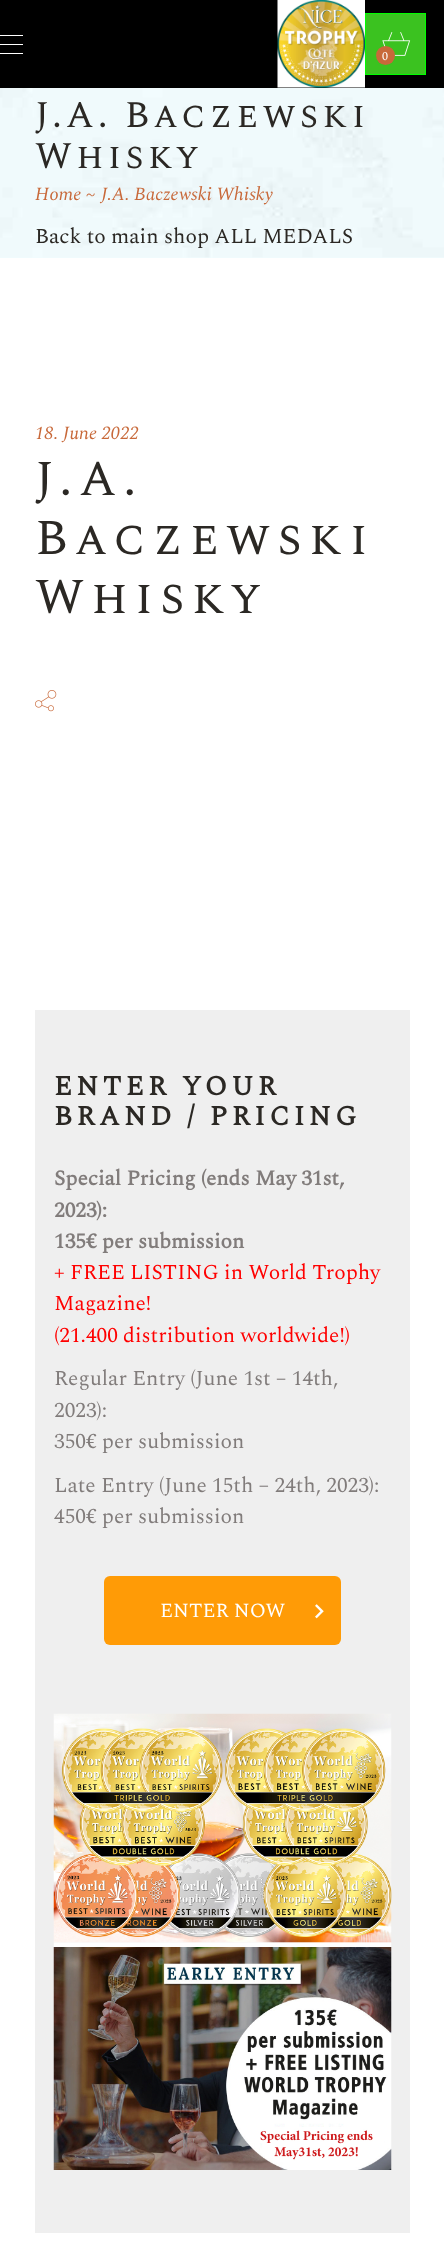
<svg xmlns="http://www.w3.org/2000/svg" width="444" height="2256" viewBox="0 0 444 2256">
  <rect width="100%" height="100%" fill="#ffffff"/>
  <rect x="0" y="0" width="444" height="88" fill="#000000"/>
  <rect x="0" y="35" width="23" height="1" fill="#ffffff"/>
  <rect x="0" y="44" width="23" height="1" fill="#ffffff"/>
  <rect x="0" y="53" width="23" height="1" fill="#ffffff"/>
  <image x="277" y="0" width="88" height="88" href="img1.png"/>
  <rect x="365.5" y="13.5" width="60" height="61" fill="#3bc220" stroke="#00ff00"/>
  <image x="382" y="32" width="29" height="24" href="img2.png"/>
  <circle cx="385.5" cy="55.5" r="9.5" fill="#c8693a"/>
  <text x="382" y="60" font-family="Spectral" font-size="12" fill="#ffffff">0</text>
  <rect x="0" y="257" width="444" height="1" fill="#f1fdfe"/>
  <image x="0" y="88" width="444" height="170" href="img3.png"/>
  <text x="35" y="127" font-family="Spectral SC" font-size="37.5" letter-spacing="4.1" fill="#2b2824">J.A. Baczewski</text>
  <text x="35" y="168" font-family="Spectral SC" font-size="37.5" letter-spacing="4.1" fill="#2b2824">Whisky</text>
  <text x="35" y="200" font-family="Spectral" font-size="18.75" font-style="italic" fill="#c8693a">Home</text>
  <text x="86" y="200" font-family="Spectral" font-size="18.75" font-style="italic" fill="#c8693a">~</text>
  <text x="101" y="200" font-family="Spectral" font-size="18.75" font-style="italic" fill="#c8693a">J.A. Baczewski Whisky</text>
  <text x="35" y="243" font-family="Spectral" font-size="21.25" fill="#2b2824">Back to main shop ALL MEDALS</text>
  <text x="35" y="439" font-family="Spectral" font-size="18.75" font-style="italic" fill="#c8693a">18. June 2022</text>
  <text x="35" y="495" font-family="Spectral SC" font-size="50" letter-spacing="7" fill="#2b2824">J.A.</text>
  <text x="35" y="554" font-family="Spectral SC" font-size="50" letter-spacing="7" fill="#2b2824">Baczewski</text>
  <text x="35" y="613" font-family="Spectral SC" font-size="50" letter-spacing="7" fill="#2b2824">Whisky</text>
  <image x="35" y="690" width="22" height="22" href="img4.png"/>
  <rect x="35" y="1010" width="375" height="1223" fill="#efefef"/>
  <text x="54" y="1095" font-family="Spectral SC" font-size="27.5" font-weight="bold" letter-spacing="4.4" fill="#2b2824">ENTER YOUR</text>
  <text x="54" y="1125" font-family="Spectral SC" font-size="27.5" font-weight="bold" letter-spacing="4.4" fill="#2b2824">BRAND / PRICING</text>
  <text x="54" y="1185" font-family="Spectral" font-size="21.25" font-weight="bold" fill="#817c7b">Special Pricing (ends May 31st,</text>
  <text x="54" y="1217" font-family="Spectral" font-size="21.25" font-weight="bold" fill="#817c7b">2023):</text>
  <text x="54" y="1248" font-family="Spectral" font-size="21.25" font-weight="bold" fill="#817c7b">135€ per submission</text>
  <text x="54" y="1279" font-family="Spectral" font-size="21.25" fill="#ff0000">+ FREE LISTING in World Trophy</text>
  <text x="54" y="1310" font-family="Spectral" font-size="21.25" fill="#ff0000">Magazine!</text>
  <text x="54" y="1342" font-family="Spectral" font-size="21.25" fill="#ff0000">(21.400 distribution worldwide!)</text>
  <text x="54" y="1385" font-family="Spectral" font-size="21.25" fill="#817c7b">Regular Entry (June 1st – 14th,</text>
  <text x="54" y="1417" font-family="Spectral" font-size="21.25" fill="#817c7b">2023):</text>
  <text x="54" y="1448" font-family="Spectral" font-size="21.25" fill="#817c7b">350€ per submission</text>
  <text x="54" y="1492" font-family="Spectral" font-size="21.25" fill="#817c7b">Late Entry (June 15th – 24th, 2023):</text>
  <text x="54" y="1523" font-family="Spectral" font-size="21.25" fill="#817c7b">450€ per submission</text>
  <rect x="104" y="1576" width="237" height="69" rx="6" fill="#ff9b06"/>
  <image x="315" y="1604" width="9" height="15" href="img5.png"/>
  <text x="160" y="1617" font-family="Spectral" font-size="20" fill="#ffffff">ENTER NOW</text>
  <image x="53" y="1713" width="339" height="230" href="img6.png"/>
  <image x="53" y="1942" width="339" height="228" href="img7.png"/>
</svg>
